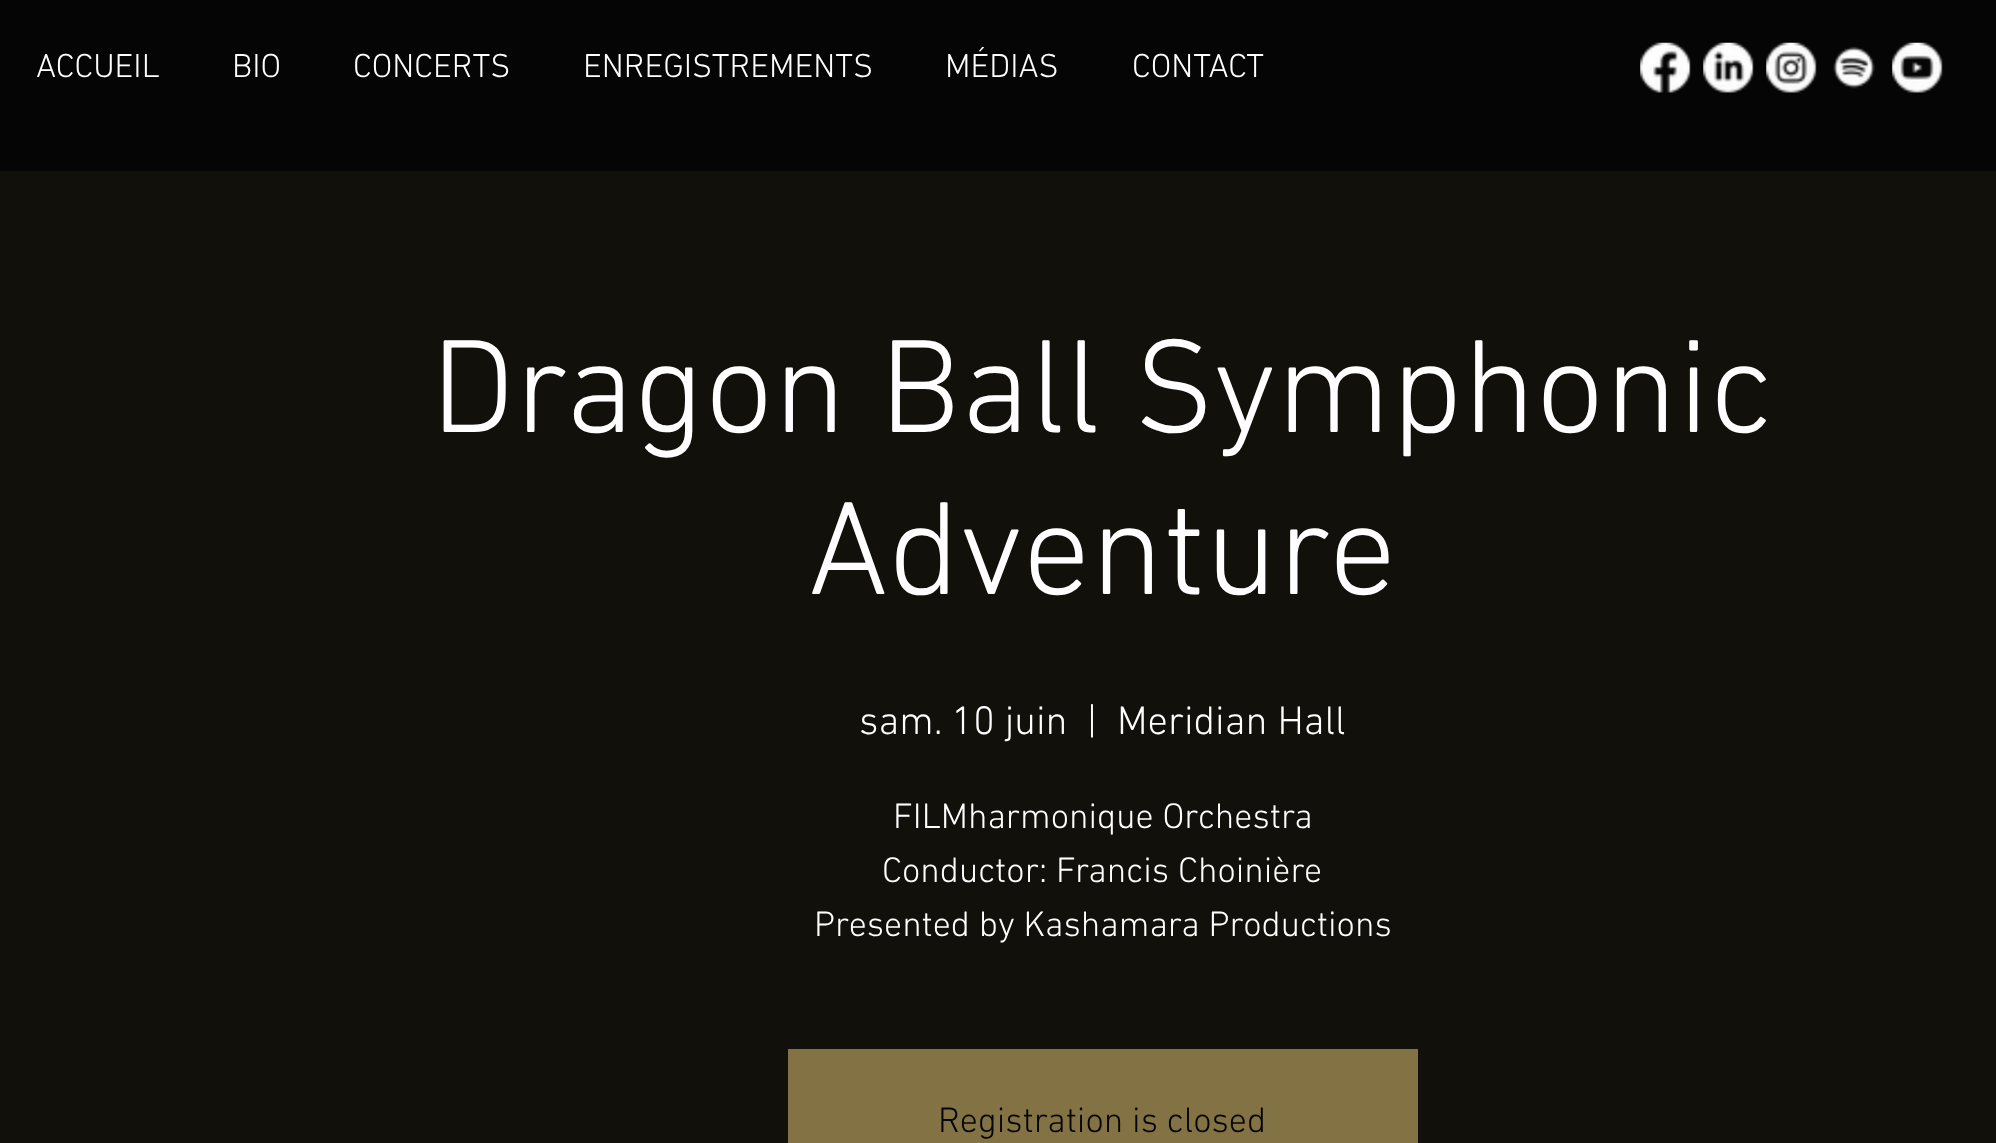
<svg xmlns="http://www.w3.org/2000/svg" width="1996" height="1143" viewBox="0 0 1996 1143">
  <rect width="100%" height="100%" fill="#050505"/>
  <text x="36" y="77" font-family="'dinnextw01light'" font-size="33.75" font-weight="300" fill="#ffffff">ACCUEIL</text>
  <text x="232" y="77" font-family="'dinnextw01light'" font-size="33.75" font-weight="300" fill="#ffffff">BIO</text>
  <text x="353" y="77" font-family="'dinnextw01light'" font-size="33.75" font-weight="300" fill="#ffffff">CONCERTS</text>
  <text x="583" y="77" font-family="'dinnextw01light'" font-size="33.75" font-weight="300" fill="#ffffff">ENREGISTREMENTS</text>
  <text x="945" y="77" font-family="'dinnextw01light'" font-size="33.75" font-weight="300" fill="#ffffff">MÉDIAS</text>
  <text x="1132" y="77" font-family="'dinnextw01light'" font-size="33.75" font-weight="300" fill="#ffffff">CONTACT</text>
  <image x="1640" y="42" width="51" height="51" href="img1.png"/>
  <image x="1703" y="42" width="51" height="51" href="img2.png"/>
  <image x="1766" y="42" width="51" height="51" href="img3.png"/>
  <image x="1833" y="46" width="42" height="43" href="img4.png"/>
  <image x="1892" y="42" width="51" height="51" href="img5.png"/>
  <rect x="0" y="171" width="1996" height="972" fill="#12100b"/>
  <text x="431" y="432" font-family="'dinnextw01light'" font-size="135" font-weight="300" fill="#ffffff">Dragon Ball Symphonic</text>
  <text x="808" y="594" font-family="'dinnextw01light'" font-size="135" font-weight="300" fill="#ffffff">Adventure</text>
  <text x="859" y="734" font-family="'dinnextw01light'" font-size="40.5" font-weight="300" fill="#ffffff">sam. 10 juin</text>
  <text x="1087" y="734" font-family="'dinnextw01light'" font-size="40.5" font-weight="300" fill="#ffffff">|</text>
  <text x="1117" y="734" font-family="'dinnextw01light'" font-size="40.5" font-weight="300" fill="#ffffff">Meridian Hall</text>
  <text x="893" y="828" font-family="'dinnextw01light'" font-size="36" font-weight="300" fill="#ffffff">FILMharmonique Orchestra</text>
  <text x="882" y="882" font-family="'dinnextw01light'" font-size="36" font-weight="300" fill="#ffffff">Conductor: Francis Choinière</text>
  <text x="814" y="936" font-family="'dinnextw01light'" font-size="36" font-weight="300" fill="#ffffff">Presented by Kashamara Productions</text>
  <rect x="788" y="1049" width="630" height="94" fill="#837244"/>
  <text x="938" y="1132" font-family="'dinnextw01light'" font-size="36" font-weight="300" fill="#050505">Registration is closed</text>
</svg>
